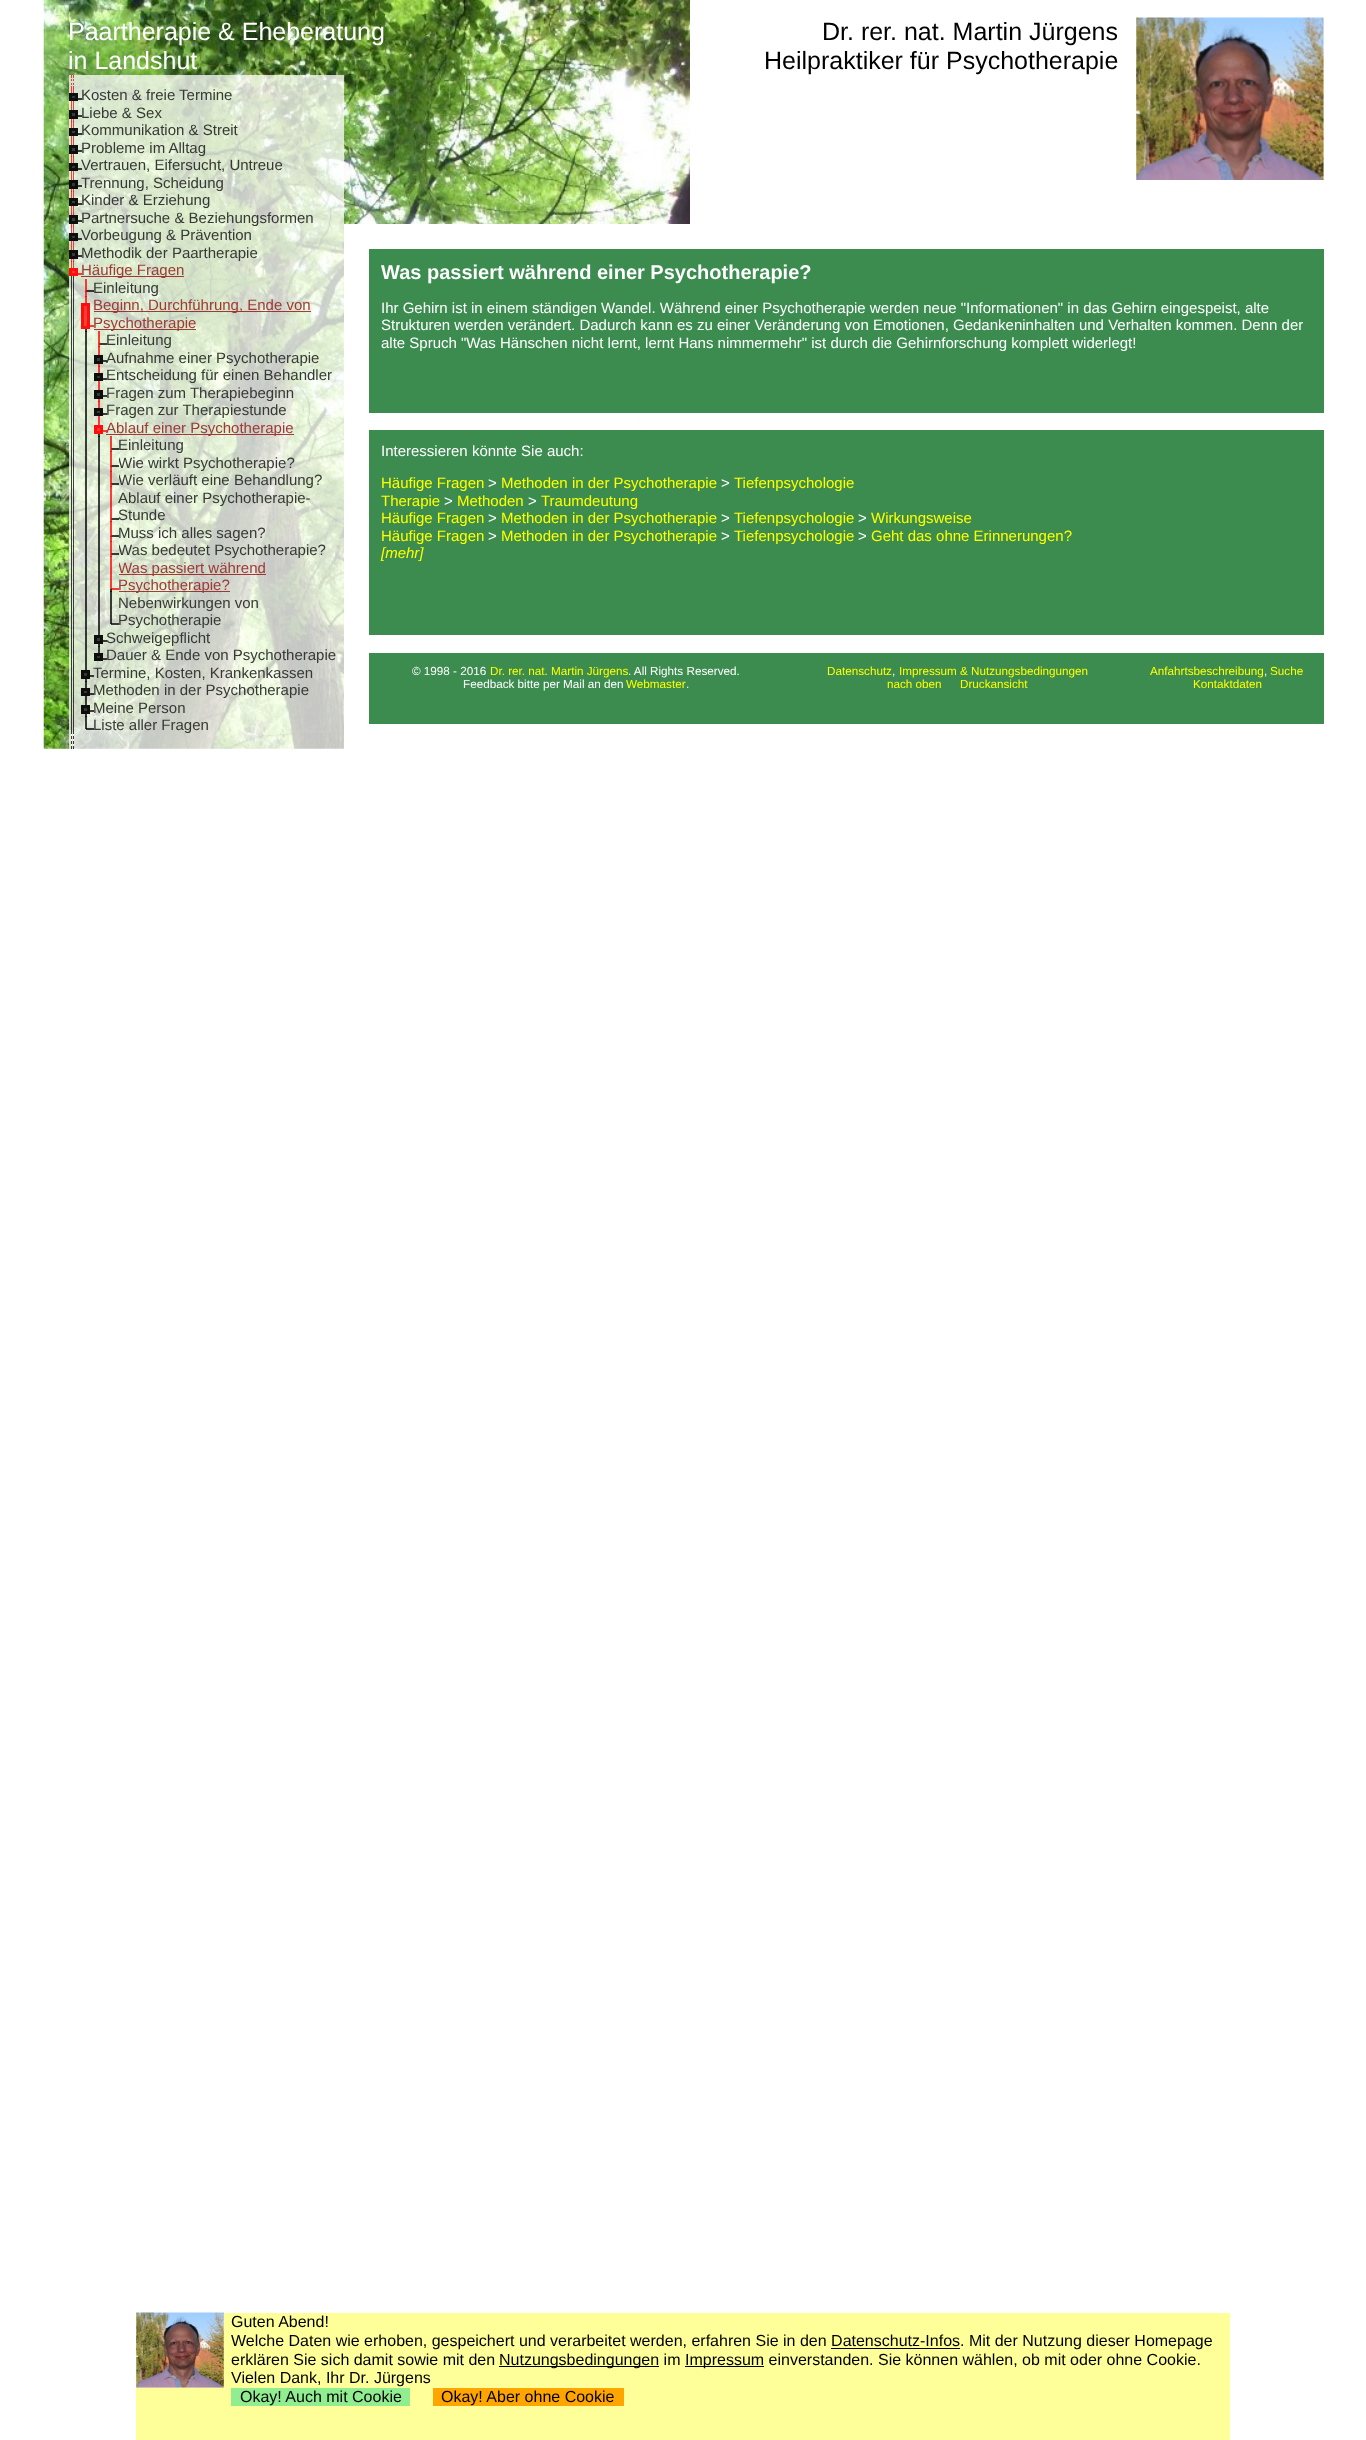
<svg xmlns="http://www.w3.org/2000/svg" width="1366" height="2440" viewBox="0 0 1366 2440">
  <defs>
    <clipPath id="clip1"><rect x="94" y="296" width="250" height="35"/></clipPath>
    <clipPath id="clip2"><rect x="106" y="349" width="238" height="17"/></clipPath>
    <clipPath id="clip3"><rect x="106" y="419" width="238" height="17"/></clipPath>
    <clipPath id="clip4"><rect x="119" y="454" width="225" height="17"/></clipPath>
    <clipPath id="clip5"><rect x="119" y="471" width="225" height="18"/></clipPath>
    <clipPath id="clip6"><rect x="119" y="541" width="225" height="18"/></clipPath>
    <clipPath id="clip7"><rect x="119" y="559" width="225" height="35"/></clipPath>
  </defs>
  <rect width="100%" height="100%" fill="#ffffff"/>
  <image x="43" y="0" width="647" height="749" href="img1.png"/>
  <text x="68" y="40" font-family="Liberation Sans" font-size="25" fill="#ffffff">Paartherapie &amp; Eheberatung</text>
  <text x="68" y="69" font-family="Liberation Sans" font-size="25" fill="#ffffff">in Landshut</text>
  <text x="822" y="40" font-family="Liberation Sans" font-size="25" fill="#000000">Dr. rer. nat. Martin Jürgens</text>
  <image x="1136" y="17" width="188" height="163" href="img2.png"/>
  <text x="764" y="69" font-family="Liberation Sans" font-size="25" fill="#000000">Heilpraktiker für Psychotherapie</text>
  <rect x="69" y="75" width="275" height="674" fill="#ffffff" fill-opacity="0.75"/>
  <rect x="71" y="75" width="1" height="3" fill="#ff0000" fill-opacity="0.75"/>
  <rect x="73" y="75" width="1" height="3" fill="#f53934"/>
  <rect x="71" y="79" width="1" height="3" fill="#f53934"/>
  <rect x="73" y="79" width="1" height="3" fill="#ff0000" fill-opacity="0.75"/>
  <rect x="71" y="81" width="1" height="1" fill="#d6e3cf"/>
  <rect x="73" y="81" width="1" height="1" fill="#d5e3ce"/>
  <rect x="71" y="83" width="1" height="3" fill="#f43834"/>
  <rect x="73" y="83" width="1" height="3" fill="#f53934"/>
  <rect x="71" y="85" width="1" height="1" fill="#d3e0ce"/>
  <rect x="73" y="85" width="1" height="1" fill="#d6e3d0"/>
  <rect x="69" y="93" width="9" height="8" fill="#000000" fill-opacity="0.75"/>
  <rect x="70.5" y="94.5" width="6" height="5" fill="none" stroke="#000000" stroke-opacity="0.75" stroke-width="3"/>
  <text x="81" y="100" font-family="Liberation Sans" font-size="15" fill="#363934">Kosten &amp; freie Termine</text>
  <rect x="78" y="98" width="4" height="1" fill="#000000" fill-opacity="0.75"/>
  <rect x="71" y="86" width="1" height="7" fill="#ff0000" fill-opacity="0.75"/>
  <rect x="73" y="86" width="1" height="7" fill="#ff0000" fill-opacity="0.75"/>
  <rect x="78" y="99" width="4" height="1" fill="#000000" fill-opacity="0.75"/>
  <rect x="71" y="101" width="1" height="3" fill="#f83c36"/>
  <rect x="73" y="101" width="1" height="3" fill="#ff0000" fill-opacity="0.75"/>
  <rect x="69" y="110" width="9" height="9" fill="#000000" fill-opacity="0.75"/>
  <rect x="70.5" y="111.5" width="6" height="6" fill="none" stroke="#000000" stroke-opacity="0.75" stroke-width="3"/>
  <text x="81" y="118" font-family="Liberation Sans" font-size="15" fill="#363934">Liebe &amp; Sex</text>
  <rect x="78" y="115" width="4" height="1" fill="#000000" fill-opacity="0.75"/>
  <rect x="71" y="104" width="1" height="6" fill="#ff0000" fill-opacity="0.75"/>
  <rect x="73" y="104" width="1" height="6" fill="#ff0000" fill-opacity="0.75"/>
  <rect x="78" y="116" width="4" height="1" fill="#000000" fill-opacity="0.75"/>
  <rect x="71" y="119" width="1" height="3" fill="#f63b35"/>
  <rect x="73" y="119" width="1" height="3" fill="#f63a34"/>
  <rect x="69" y="128" width="9" height="8" fill="#000000" fill-opacity="0.75"/>
  <rect x="70.5" y="129.5" width="6" height="5" fill="none" stroke="#000000" stroke-opacity="0.75" stroke-width="3"/>
  <text x="81" y="135" font-family="Liberation Sans" font-size="15" fill="#363934">Kommunikation &amp; Streit</text>
  <rect x="78" y="133" width="4" height="1" fill="#000000" fill-opacity="0.75"/>
  <rect x="71" y="121" width="1" height="7" fill="#ff0000" fill-opacity="0.75"/>
  <rect x="73" y="121" width="1" height="7" fill="#ff0000" fill-opacity="0.75"/>
  <rect x="78" y="134" width="4" height="1" fill="#000000" fill-opacity="0.75"/>
  <rect x="71" y="136" width="1" height="3" fill="#f83c37"/>
  <rect x="73" y="136" width="1" height="3" fill="#f73b36"/>
  <rect x="69" y="145" width="9" height="9" fill="#000000" fill-opacity="0.75"/>
  <rect x="70.5" y="146.5" width="6" height="6" fill="none" stroke="#000000" stroke-opacity="0.75" stroke-width="3"/>
  <text x="81" y="153" font-family="Liberation Sans" font-size="15" fill="#363934">Probleme im Alltag</text>
  <rect x="78" y="150" width="4" height="1" fill="#000000" fill-opacity="0.75"/>
  <rect x="71" y="139" width="1" height="6" fill="#ff0000" fill-opacity="0.75"/>
  <rect x="73" y="139" width="1" height="6" fill="#ff0000" fill-opacity="0.75"/>
  <rect x="78" y="151" width="4" height="1" fill="#000000" fill-opacity="0.75"/>
  <rect x="71" y="154" width="1" height="3" fill="#f73b35"/>
  <rect x="73" y="154" width="1" height="3" fill="#f73c35"/>
  <rect x="69" y="163" width="9" height="8" fill="#000000" fill-opacity="0.75"/>
  <rect x="70.5" y="164.5" width="6" height="5" fill="none" stroke="#000000" stroke-opacity="0.75" stroke-width="3"/>
  <text x="81" y="170" font-family="Liberation Sans" font-size="15" fill="#363934">Vertrauen, Eifersucht, Untreue</text>
  <rect x="78" y="168" width="4" height="1" fill="#000000" fill-opacity="0.75"/>
  <rect x="71" y="156" width="1" height="7" fill="#ff0000" fill-opacity="0.75"/>
  <rect x="73" y="156" width="1" height="7" fill="#ff0000" fill-opacity="0.75"/>
  <rect x="78" y="169" width="4" height="1" fill="#000000" fill-opacity="0.75"/>
  <rect x="71" y="171" width="1" height="3" fill="#ff0000" fill-opacity="0.75"/>
  <rect x="73" y="171" width="1" height="3" fill="#f83c36"/>
  <rect x="69" y="180" width="9" height="9" fill="#000000" fill-opacity="0.75"/>
  <rect x="70.5" y="181.5" width="6" height="6" fill="none" stroke="#000000" stroke-opacity="0.75" stroke-width="3"/>
  <text x="81" y="188" font-family="Liberation Sans" font-size="15" fill="#363934">Trennung, Scheidung</text>
  <rect x="78" y="185" width="4" height="1" fill="#000000" fill-opacity="0.75"/>
  <rect x="71" y="174" width="1" height="6" fill="#ff0000" fill-opacity="0.75"/>
  <rect x="73" y="174" width="1" height="6" fill="#ff0000" fill-opacity="0.75"/>
  <rect x="78" y="186" width="4" height="1" fill="#000000" fill-opacity="0.75"/>
  <rect x="71" y="189" width="1" height="3" fill="#ff0000" fill-opacity="0.75"/>
  <rect x="73" y="189" width="1" height="3" fill="#ff0000" fill-opacity="0.75"/>
  <rect x="69" y="198" width="9" height="8" fill="#000000" fill-opacity="0.75"/>
  <rect x="70.5" y="199.5" width="6" height="5" fill="none" stroke="#000000" stroke-opacity="0.75" stroke-width="3"/>
  <text x="81" y="205" font-family="Liberation Sans" font-size="15" fill="#363934">Kinder &amp; Erziehung</text>
  <rect x="78" y="203" width="4" height="1" fill="#000000" fill-opacity="0.75"/>
  <rect x="71" y="191" width="1" height="7" fill="#ff0000" fill-opacity="0.75"/>
  <rect x="73" y="191" width="1" height="7" fill="#ff0000" fill-opacity="0.75"/>
  <rect x="78" y="204" width="4" height="1" fill="#000000" fill-opacity="0.75"/>
  <rect x="71" y="206" width="1" height="3" fill="#ff0000" fill-opacity="0.75"/>
  <rect x="73" y="206" width="1" height="3" fill="#ff0000" fill-opacity="0.75"/>
  <rect x="69" y="215" width="9" height="9" fill="#000000" fill-opacity="0.75"/>
  <rect x="70.5" y="216.5" width="6" height="6" fill="none" stroke="#000000" stroke-opacity="0.75" stroke-width="3"/>
  <text x="81" y="223" font-family="Liberation Sans" font-size="15" fill="#363934">Partnersuche &amp; Beziehungsformen</text>
  <rect x="78" y="220" width="4" height="1" fill="#000000" fill-opacity="0.75"/>
  <rect x="71" y="209" width="1" height="6" fill="#ff0000" fill-opacity="0.75"/>
  <rect x="73" y="209" width="1" height="6" fill="#ff0000" fill-opacity="0.75"/>
  <rect x="78" y="221" width="4" height="1" fill="#000000" fill-opacity="0.75"/>
  <rect x="71" y="224" width="1" height="3" fill="#ff0000" fill-opacity="0.75"/>
  <rect x="73" y="224" width="1" height="3" fill="#ff0000" fill-opacity="0.75"/>
  <rect x="69" y="233" width="9" height="8" fill="#000000" fill-opacity="0.75"/>
  <rect x="70.5" y="234.5" width="6" height="5" fill="none" stroke="#000000" stroke-opacity="0.75" stroke-width="3"/>
  <text x="81" y="240" font-family="Liberation Sans" font-size="15" fill="#363934">Vorbeugung &amp; Prävention</text>
  <rect x="78" y="238" width="4" height="1" fill="#000000" fill-opacity="0.75"/>
  <rect x="71" y="226" width="1" height="7" fill="#ff0000" fill-opacity="0.75"/>
  <rect x="73" y="226" width="1" height="7" fill="#ff0000" fill-opacity="0.75"/>
  <rect x="78" y="239" width="4" height="1" fill="#000000" fill-opacity="0.75"/>
  <rect x="71" y="241" width="1" height="3" fill="#ff0000" fill-opacity="0.75"/>
  <rect x="73" y="241" width="1" height="3" fill="#ff0000" fill-opacity="0.75"/>
  <rect x="69" y="250" width="9" height="9" fill="#000000" fill-opacity="0.75"/>
  <rect x="70.5" y="251.5" width="6" height="6" fill="none" stroke="#000000" stroke-opacity="0.75" stroke-width="3"/>
  <text x="81" y="258" font-family="Liberation Sans" font-size="15" fill="#363934">Methodik der Paartherapie</text>
  <rect x="78" y="255" width="4" height="1" fill="#000000" fill-opacity="0.75"/>
  <rect x="71" y="244" width="1" height="6" fill="#ff0000" fill-opacity="0.75"/>
  <rect x="73" y="244" width="1" height="6" fill="#ff0000" fill-opacity="0.75"/>
  <rect x="78" y="256" width="4" height="1" fill="#000000" fill-opacity="0.75"/>
  <rect x="71" y="259" width="1" height="3" fill="#f53933"/>
  <rect x="73" y="259" width="1" height="3" fill="#ff0000" fill-opacity="0.75"/>
  <rect x="69" y="268" width="9" height="8" fill="#ff0000" fill-opacity="0.75"/>
  <rect x="70.5" y="269.5" width="6" height="5" fill="none" stroke="#ff0000" stroke-opacity="0.75" stroke-width="3"/>
  <rect x="81" y="276" width="103" height="1" fill="#8b0000" fill-opacity="0.75"/>
  <text x="81" y="275" font-family="Liberation Sans" font-size="15" fill="#9e3933">Häufige Fragen</text>
  <rect x="78" y="273" width="4" height="1" fill="#ff0000" fill-opacity="0.75"/>
  <rect x="71" y="261" width="1" height="7" fill="#ff0000" fill-opacity="0.75"/>
  <rect x="73" y="261" width="1" height="7" fill="#ff0000" fill-opacity="0.75"/>
  <rect x="78" y="274" width="4" height="1" fill="#ff0000" fill-opacity="0.75"/>
  <rect x="71" y="276" width="1" height="3" fill="#353833"/>
  <rect x="73" y="276" width="1" height="3" fill="#000000" fill-opacity="0.75"/>
  <rect x="71" y="279" width="1" height="455" fill="#000000" fill-opacity="0.75"/>
  <rect x="73" y="279" width="1" height="455" fill="#000000" fill-opacity="0.75"/>
  <rect x="85" y="289" width="1" height="3" fill="#ff0000" fill-opacity="0.75"/>
  <rect x="86" y="290" width="4" height="1" fill="#323431"/>
  <rect x="86" y="289" width="1" height="3" fill="#ff0000" fill-opacity="0.75"/>
  <rect x="90" y="290" width="4" height="1" fill="#000000" fill-opacity="0.75"/>
  <rect x="85" y="279" width="1" height="10" fill="#ff0000" fill-opacity="0.75"/>
  <rect x="86" y="279" width="1" height="10" fill="#ff0000" fill-opacity="0.75"/>
  <text x="93" y="293" font-family="Liberation Sans" font-size="15" fill="#363934">Einleitung</text>
  <rect x="85" y="291" width="1" height="3" fill="#ff0000" fill-opacity="0.75"/>
  <rect x="86" y="291" width="4" height="1" fill="#000000" fill-opacity="0.75"/>
  <rect x="86" y="291" width="1" height="3" fill="#ff0000" fill-opacity="0.75"/>
  <rect x="90" y="291" width="4" height="1" fill="#000000" fill-opacity="0.75"/>
  <rect x="85" y="294" width="1" height="3" fill="#ff0000" fill-opacity="0.75"/>
  <rect x="86" y="294" width="1" height="3" fill="#ff0000" fill-opacity="0.75"/>
  <rect x="81" y="303" width="9" height="26" fill="#ff0000" fill-opacity="0.75"/>
  <rect x="82.5" y="304.5" width="6" height="23" fill="none" stroke="#ff0000" stroke-opacity="0.75" stroke-width="3"/>
  <rect x="90" y="325" width="4" height="1" fill="#ff0000" fill-opacity="0.75"/>
  <rect x="85" y="296" width="1" height="7" fill="#ff0000" fill-opacity="0.75"/>
  <rect x="86" y="296" width="1" height="7" fill="#ff0000" fill-opacity="0.75"/>
  <rect x="94" y="311" width="217" height="1" fill="#8b0000" fill-opacity="0.75"/>
  <text x="93" y="310" font-family="Liberation Sans" font-size="15" fill="#9e3933">Beginn, Durchführung, Ende von</text>
  <rect x="94" y="329" width="102" height="1" fill="#8b0000" fill-opacity="0.75"/>
  <g clip-path="url(#clip1)">
    <text x="93" y="328" font-family="Liberation Sans" font-size="15" fill="#9e3933">Psychotherapie</text>
  </g>
  <rect x="90" y="326" width="4" height="1" fill="#ff0000" fill-opacity="0.75"/>
  <rect x="85" y="329" width="1" height="3" fill="#000000" fill-opacity="0.75"/>
  <rect x="86" y="329" width="1" height="3" fill="#000000" fill-opacity="0.75"/>
  <rect x="85" y="331" width="1" height="333" fill="#000000" fill-opacity="0.75"/>
  <rect x="86" y="331" width="1" height="333" fill="#000000" fill-opacity="0.75"/>
  <rect x="98" y="341" width="1" height="3" fill="#f83d36"/>
  <rect x="99" y="343" width="4" height="1" fill="#393c35"/>
  <rect x="99" y="341" width="1" height="3" fill="#ff0000" fill-opacity="0.75"/>
  <text x="106" y="345" font-family="Liberation Sans" font-size="15" fill="#363934">Einleitung</text>
  <rect x="103" y="343" width="4" height="1" fill="#000000" fill-opacity="0.75"/>
  <rect x="98" y="331" width="1" height="10" fill="#ff0000" fill-opacity="0.75"/>
  <rect x="99" y="331" width="1" height="10" fill="#ff0000" fill-opacity="0.75"/>
  <rect x="98" y="344" width="1" height="3" fill="#ff0000" fill-opacity="0.75"/>
  <rect x="99" y="344" width="4" height="1" fill="#000000" fill-opacity="0.75"/>
  <rect x="99" y="344" width="1" height="3" fill="#ff0000" fill-opacity="0.75"/>
  <rect x="103" y="344" width="4" height="1" fill="#000000" fill-opacity="0.75"/>
  <rect x="98" y="346" width="1" height="3" fill="#ff0000" fill-opacity="0.75"/>
  <rect x="99" y="346" width="1" height="3" fill="#ff0000" fill-opacity="0.75"/>
  <rect x="94" y="355" width="9" height="9" fill="#000000" fill-opacity="0.75"/>
  <rect x="95.5" y="356.5" width="6" height="6" fill="none" stroke="#000000" stroke-opacity="0.75" stroke-width="3"/>
  <g clip-path="url(#clip2)">
    <text x="106" y="363" font-family="Liberation Sans" font-size="15" fill="#363934">Aufnahme einer Psychotherapie</text>
  </g>
  <rect x="103" y="360" width="4" height="1" fill="#000000" fill-opacity="0.75"/>
  <rect x="98" y="349" width="1" height="6" fill="#ff0000" fill-opacity="0.75"/>
  <rect x="99" y="349" width="1" height="6" fill="#ff0000" fill-opacity="0.75"/>
  <rect x="103" y="361" width="4" height="1" fill="#000000" fill-opacity="0.75"/>
  <rect x="98" y="364" width="1" height="3" fill="#ff0000" fill-opacity="0.75"/>
  <rect x="99" y="364" width="1" height="3" fill="#ff0000" fill-opacity="0.75"/>
  <rect x="94" y="373" width="9" height="8" fill="#000000" fill-opacity="0.75"/>
  <rect x="95.5" y="374.5" width="6" height="5" fill="none" stroke="#000000" stroke-opacity="0.75" stroke-width="3"/>
  <text x="106" y="380" font-family="Liberation Sans" font-size="15" fill="#363934">Entscheidung für einen Behandler</text>
  <rect x="103" y="378" width="4" height="1" fill="#000000" fill-opacity="0.75"/>
  <rect x="98" y="366" width="1" height="7" fill="#ff0000" fill-opacity="0.75"/>
  <rect x="99" y="366" width="1" height="7" fill="#ff0000" fill-opacity="0.75"/>
  <rect x="103" y="379" width="4" height="1" fill="#000000" fill-opacity="0.75"/>
  <rect x="98" y="381" width="1" height="3" fill="#ff0000" fill-opacity="0.75"/>
  <rect x="99" y="381" width="1" height="3" fill="#f83c36"/>
  <rect x="94" y="390" width="9" height="9" fill="#000000" fill-opacity="0.75"/>
  <rect x="95.5" y="391.5" width="6" height="6" fill="none" stroke="#000000" stroke-opacity="0.75" stroke-width="3"/>
  <text x="106" y="398" font-family="Liberation Sans" font-size="15" fill="#363934">Fragen zum Therapiebeginn</text>
  <rect x="103" y="395" width="4" height="1" fill="#000000" fill-opacity="0.75"/>
  <rect x="98" y="384" width="1" height="6" fill="#ff0000" fill-opacity="0.75"/>
  <rect x="99" y="384" width="1" height="6" fill="#ff0000" fill-opacity="0.75"/>
  <rect x="103" y="396" width="4" height="1" fill="#000000" fill-opacity="0.75"/>
  <rect x="98" y="399" width="1" height="3" fill="#ff0000" fill-opacity="0.75"/>
  <rect x="99" y="399" width="1" height="3" fill="#ff0000" fill-opacity="0.75"/>
  <rect x="94" y="408" width="9" height="8" fill="#000000" fill-opacity="0.75"/>
  <rect x="95.5" y="409.5" width="6" height="5" fill="none" stroke="#000000" stroke-opacity="0.75" stroke-width="3"/>
  <text x="106" y="415" font-family="Liberation Sans" font-size="15" fill="#363934">Fragen zur Therapiestunde</text>
  <rect x="103" y="413" width="4" height="1" fill="#000000" fill-opacity="0.75"/>
  <rect x="98" y="401" width="1" height="7" fill="#ff0000" fill-opacity="0.75"/>
  <rect x="99" y="401" width="1" height="7" fill="#ff0000" fill-opacity="0.75"/>
  <rect x="103" y="414" width="4" height="1" fill="#000000" fill-opacity="0.75"/>
  <rect x="98" y="416" width="1" height="3" fill="#f53934"/>
  <rect x="99" y="416" width="1" height="3" fill="#ff0000" fill-opacity="0.75"/>
  <rect x="94" y="425" width="9" height="9" fill="#ff0000" fill-opacity="0.75"/>
  <rect x="95.5" y="426.5" width="6" height="6" fill="none" stroke="#ff0000" stroke-opacity="0.75" stroke-width="3"/>
  <rect x="106" y="434" width="188" height="1" fill="#8b0000" fill-opacity="0.75"/>
  <g clip-path="url(#clip3)">
    <text x="106" y="433" font-family="Liberation Sans" font-size="15" fill="#9e3933">Ablauf einer Psychotherapie</text>
  </g>
  <rect x="103" y="430" width="4" height="1" fill="#ff0000" fill-opacity="0.75"/>
  <rect x="98" y="419" width="1" height="6" fill="#ff0000" fill-opacity="0.75"/>
  <rect x="99" y="419" width="1" height="6" fill="#ff0000" fill-opacity="0.75"/>
  <rect x="103" y="431" width="4" height="1" fill="#ff0000" fill-opacity="0.75"/>
  <rect x="98" y="434" width="1" height="3" fill="#000000" fill-opacity="0.75"/>
  <rect x="99" y="434" width="1" height="3" fill="#373b34"/>
  <rect x="98" y="436" width="1" height="193" fill="#000000" fill-opacity="0.75"/>
  <rect x="99" y="436" width="1" height="193" fill="#000000" fill-opacity="0.75"/>
  <rect x="110" y="446" width="1" height="3" fill="#ff0000" fill-opacity="0.75"/>
  <rect x="111" y="448" width="4" height="1" fill="#000000" fill-opacity="0.75"/>
  <rect x="111" y="446" width="1" height="3" fill="#ff0000" fill-opacity="0.75"/>
  <rect x="115" y="448" width="4" height="1" fill="#000000" fill-opacity="0.75"/>
  <rect x="110" y="436" width="1" height="10" fill="#ff0000" fill-opacity="0.75"/>
  <rect x="111" y="436" width="1" height="10" fill="#ff0000" fill-opacity="0.75"/>
  <text x="118" y="450" font-family="Liberation Sans" font-size="15" fill="#363934">Einleitung</text>
  <rect x="110" y="449" width="1" height="3" fill="#ff0000" fill-opacity="0.75"/>
  <rect x="111" y="449" width="4" height="1" fill="#000000" fill-opacity="0.75"/>
  <rect x="111" y="449" width="1" height="3" fill="#ff0000" fill-opacity="0.75"/>
  <rect x="115" y="449" width="4" height="1" fill="#000000" fill-opacity="0.75"/>
  <rect x="110" y="451" width="1" height="3" fill="#ff0000" fill-opacity="0.75"/>
  <rect x="111" y="451" width="1" height="3" fill="#ff0000" fill-opacity="0.75"/>
  <rect x="110" y="464" width="1" height="3" fill="#ff0000" fill-opacity="0.75"/>
  <rect x="111" y="465" width="4" height="1" fill="#000000" fill-opacity="0.75"/>
  <rect x="111" y="464" width="1" height="3" fill="#ff0000" fill-opacity="0.75"/>
  <rect x="115" y="465" width="4" height="1" fill="#000000" fill-opacity="0.75"/>
  <rect x="110" y="454" width="1" height="10" fill="#ff0000" fill-opacity="0.75"/>
  <rect x="111" y="454" width="1" height="10" fill="#ff0000" fill-opacity="0.75"/>
  <g clip-path="url(#clip4)">
    <text x="118" y="468" font-family="Liberation Sans" font-size="15" fill="#363934">Wie wirkt Psychotherapie?</text>
  </g>
  <rect x="110" y="466" width="1" height="3" fill="#ff0000" fill-opacity="0.75"/>
  <rect x="111" y="466" width="4" height="1" fill="#000000" fill-opacity="0.75"/>
  <rect x="111" y="466" width="1" height="3" fill="#ff0000" fill-opacity="0.75"/>
  <rect x="115" y="466" width="4" height="1" fill="#000000" fill-opacity="0.75"/>
  <rect x="110" y="469" width="1" height="3" fill="#ff0000" fill-opacity="0.75"/>
  <rect x="111" y="469" width="1" height="3" fill="#ff0000" fill-opacity="0.75"/>
  <rect x="110" y="481" width="1" height="3" fill="#f53832"/>
  <rect x="111" y="483" width="4" height="1" fill="#000000" fill-opacity="0.75"/>
  <rect x="111" y="481" width="1" height="3" fill="#ff0000" fill-opacity="0.75"/>
  <rect x="115" y="483" width="4" height="1" fill="#000000" fill-opacity="0.75"/>
  <rect x="110" y="471" width="1" height="10" fill="#ff0000" fill-opacity="0.75"/>
  <rect x="111" y="471" width="1" height="10" fill="#ff0000" fill-opacity="0.75"/>
  <g clip-path="url(#clip5)">
    <text x="118" y="485" font-family="Liberation Sans" font-size="15" fill="#363934">Wie verläuft eine Behandlung?</text>
  </g>
  <rect x="110" y="484" width="1" height="3" fill="#ff0000" fill-opacity="0.75"/>
  <rect x="111" y="484" width="4" height="1" fill="#000000" fill-opacity="0.75"/>
  <rect x="111" y="484" width="1" height="3" fill="#ff0000" fill-opacity="0.75"/>
  <rect x="115" y="484" width="4" height="1" fill="#000000" fill-opacity="0.75"/>
  <rect x="110" y="486" width="1" height="3" fill="#ff0000" fill-opacity="0.75"/>
  <rect x="111" y="486" width="1" height="3" fill="#ff0000" fill-opacity="0.75"/>
  <rect x="110" y="516" width="1" height="3" fill="#fd3f3b"/>
  <rect x="111" y="518" width="4" height="1" fill="#000000" fill-opacity="0.75"/>
  <rect x="111" y="516" width="1" height="3" fill="#ff0000" fill-opacity="0.75"/>
  <rect x="115" y="518" width="4" height="1" fill="#000000" fill-opacity="0.75"/>
  <rect x="110" y="489" width="1" height="27" fill="#ff0000" fill-opacity="0.75"/>
  <rect x="111" y="489" width="1" height="27" fill="#ff0000" fill-opacity="0.75"/>
  <text x="118" y="503" font-family="Liberation Sans" font-size="15" fill="#363934">Ablauf einer Psychotherapie-</text>
  <text x="118" y="520" font-family="Liberation Sans" font-size="15" fill="#363934">Stunde</text>
  <rect x="110" y="519" width="1" height="3" fill="#ff0000" fill-opacity="0.75"/>
  <rect x="111" y="519" width="4" height="1" fill="#000000" fill-opacity="0.75"/>
  <rect x="111" y="519" width="1" height="3" fill="#ff0000" fill-opacity="0.75"/>
  <rect x="115" y="519" width="4" height="1" fill="#000000" fill-opacity="0.75"/>
  <rect x="110" y="521" width="1" height="3" fill="#ff0000" fill-opacity="0.75"/>
  <rect x="111" y="521" width="1" height="3" fill="#ff0000" fill-opacity="0.75"/>
  <rect x="110" y="534" width="1" height="3" fill="#ff0000" fill-opacity="0.75"/>
  <rect x="111" y="535" width="4" height="1" fill="#000000" fill-opacity="0.75"/>
  <rect x="111" y="534" width="1" height="3" fill="#ff0000" fill-opacity="0.75"/>
  <rect x="115" y="535" width="4" height="1" fill="#000000" fill-opacity="0.75"/>
  <rect x="110" y="524" width="1" height="10" fill="#ff0000" fill-opacity="0.75"/>
  <rect x="111" y="524" width="1" height="10" fill="#ff0000" fill-opacity="0.75"/>
  <text x="118" y="538" font-family="Liberation Sans" font-size="15" fill="#363934">Muss ich alles sagen?</text>
  <rect x="110" y="536" width="1" height="3" fill="#ff0000" fill-opacity="0.75"/>
  <rect x="111" y="536" width="4" height="1" fill="#000000" fill-opacity="0.75"/>
  <rect x="111" y="536" width="1" height="3" fill="#ff0000" fill-opacity="0.75"/>
  <rect x="115" y="536" width="4" height="1" fill="#000000" fill-opacity="0.75"/>
  <rect x="110" y="539" width="1" height="3" fill="#ff0000" fill-opacity="0.75"/>
  <rect x="111" y="539" width="1" height="3" fill="#ff0000" fill-opacity="0.75"/>
  <rect x="110" y="551" width="1" height="3" fill="#ff0000" fill-opacity="0.75"/>
  <rect x="111" y="553" width="4" height="1" fill="#000000" fill-opacity="0.75"/>
  <rect x="111" y="551" width="1" height="3" fill="#ff0000" fill-opacity="0.75"/>
  <rect x="115" y="553" width="4" height="1" fill="#000000" fill-opacity="0.75"/>
  <rect x="110" y="541" width="1" height="10" fill="#ff0000" fill-opacity="0.75"/>
  <rect x="111" y="541" width="1" height="10" fill="#ff0000" fill-opacity="0.75"/>
  <g clip-path="url(#clip6)">
    <text x="118" y="555" font-family="Liberation Sans" font-size="15" fill="#363934">Was bedeutet Psychotherapie?</text>
  </g>
  <rect x="110" y="554" width="1" height="3" fill="#ff0000" fill-opacity="0.75"/>
  <rect x="111" y="554" width="4" height="1" fill="#000000" fill-opacity="0.75"/>
  <rect x="111" y="554" width="1" height="3" fill="#ff0000" fill-opacity="0.75"/>
  <rect x="115" y="554" width="4" height="1" fill="#000000" fill-opacity="0.75"/>
  <rect x="110" y="556" width="1" height="3" fill="#ff0000" fill-opacity="0.75"/>
  <rect x="111" y="556" width="1" height="3" fill="#ff0000" fill-opacity="0.75"/>
  <rect x="110" y="586" width="1" height="3" fill="#ff0000" fill-opacity="0.75"/>
  <rect x="111" y="588" width="4" height="1" fill="#ff0000" fill-opacity="0.75"/>
  <rect x="111" y="586" width="1" height="3" fill="#ff0000" fill-opacity="0.75"/>
  <rect x="115" y="588" width="4" height="1" fill="#ff0000" fill-opacity="0.75"/>
  <rect x="110" y="559" width="1" height="27" fill="#ff0000" fill-opacity="0.75"/>
  <rect x="111" y="559" width="1" height="27" fill="#ff0000" fill-opacity="0.75"/>
  <rect x="119" y="574" width="147" height="1" fill="#8b0000" fill-opacity="0.75"/>
  <g clip-path="url(#clip7)">
    <text x="118" y="573" font-family="Liberation Sans" font-size="15" fill="#9e3933">Was passiert während</text>
  </g>
  <rect x="119" y="591" width="111" height="1" fill="#8b0000" fill-opacity="0.75"/>
  <text x="118" y="590" font-family="Liberation Sans" font-size="15" fill="#9e3933">Psychotherapie?</text>
  <rect x="110" y="589" width="1" height="3" fill="#383c36"/>
  <rect x="111" y="589" width="4" height="1" fill="#ff0000" fill-opacity="0.75"/>
  <rect x="111" y="589" width="1" height="3" fill="#000000" fill-opacity="0.75"/>
  <rect x="115" y="589" width="4" height="1" fill="#ff0000" fill-opacity="0.75"/>
  <rect x="110" y="591" width="1" height="3" fill="#000000" fill-opacity="0.75"/>
  <rect x="111" y="591" width="1" height="3" fill="#000000" fill-opacity="0.75"/>
  <rect x="110" y="621" width="1" height="3" fill="#000000" fill-opacity="0.75"/>
  <rect x="111" y="623" width="4" height="1" fill="#000000" fill-opacity="0.75"/>
  <rect x="111" y="621" width="1" height="3" fill="#000000" fill-opacity="0.75"/>
  <rect x="115" y="623" width="4" height="1" fill="#000000" fill-opacity="0.75"/>
  <rect x="110" y="594" width="1" height="27" fill="#000000" fill-opacity="0.75"/>
  <rect x="111" y="594" width="1" height="27" fill="#000000" fill-opacity="0.75"/>
  <text x="118" y="608" font-family="Liberation Sans" font-size="15" fill="#363934">Nebenwirkungen von</text>
  <text x="118" y="625" font-family="Liberation Sans" font-size="15" fill="#363934">Psychotherapie</text>
  <rect x="111" y="624" width="4" height="1" fill="#000000" fill-opacity="0.75"/>
  <rect x="115" y="624" width="4" height="1" fill="#000000" fill-opacity="0.75"/>
  <rect x="95.5" y="636.5" width="6" height="6" fill="#000000" fill-opacity="0.75" stroke="#0d0e0d" stroke-width="3"/>
  <text x="106" y="643" font-family="Liberation Sans" font-size="15" fill="#363934">Schweigepflicht</text>
  <rect x="103" y="640" width="4" height="1" fill="#000000" fill-opacity="0.75"/>
  <rect x="98" y="629" width="1" height="6" fill="#000000" fill-opacity="0.75"/>
  <rect x="99" y="629" width="1" height="6" fill="#000000" fill-opacity="0.75"/>
  <rect x="103" y="641" width="4" height="1" fill="#000000" fill-opacity="0.75"/>
  <rect x="98" y="644" width="1" height="3" fill="#000000" fill-opacity="0.75"/>
  <rect x="99" y="644" width="1" height="3" fill="#000000" fill-opacity="0.75"/>
  <rect x="94" y="653" width="9" height="8" fill="#000000" fill-opacity="0.75"/>
  <rect x="95.5" y="654.5" width="6" height="5" fill="none" stroke="#000000" stroke-opacity="0.75" stroke-width="3"/>
  <text x="106" y="660" font-family="Liberation Sans" font-size="15" fill="#363934">Dauer &amp; Ende von Psychotherapie</text>
  <rect x="103" y="658" width="4" height="1" fill="#000000" fill-opacity="0.75"/>
  <rect x="98" y="646" width="1" height="7" fill="#000000" fill-opacity="0.75"/>
  <rect x="99" y="646" width="1" height="7" fill="#000000" fill-opacity="0.75"/>
  <rect x="103" y="659" width="4" height="1" fill="#000000" fill-opacity="0.75"/>
  <rect x="81" y="670" width="9" height="9" fill="#000000" fill-opacity="0.75"/>
  <rect x="82.5" y="671.5" width="6" height="6" fill="none" stroke="#000000" stroke-opacity="0.75" stroke-width="3"/>
  <rect x="90" y="675" width="4" height="1" fill="#000000" fill-opacity="0.75"/>
  <rect x="85" y="664" width="1" height="6" fill="#000000" fill-opacity="0.75"/>
  <rect x="86" y="664" width="1" height="6" fill="#000000" fill-opacity="0.75"/>
  <text x="93" y="678" font-family="Liberation Sans" font-size="15" fill="#363934">Termine, Kosten, Krankenkassen</text>
  <rect x="90" y="676" width="4" height="1" fill="#000000" fill-opacity="0.75"/>
  <rect x="85" y="679" width="1" height="3" fill="#000000" fill-opacity="0.75"/>
  <rect x="86" y="679" width="1" height="3" fill="#343832"/>
  <rect x="81" y="688" width="9" height="8" fill="#000000" fill-opacity="0.75"/>
  <rect x="82.5" y="689.5" width="6" height="5" fill="none" stroke="#000000" stroke-opacity="0.75" stroke-width="3"/>
  <rect x="90" y="693" width="4" height="1" fill="#000000" fill-opacity="0.75"/>
  <rect x="85" y="681" width="1" height="7" fill="#000000" fill-opacity="0.75"/>
  <rect x="86" y="681" width="1" height="7" fill="#000000" fill-opacity="0.75"/>
  <text x="93" y="695" font-family="Liberation Sans" font-size="15" fill="#363934">Methoden in der Psychotherapie</text>
  <rect x="90" y="694" width="4" height="1" fill="#000000" fill-opacity="0.75"/>
  <rect x="85" y="696" width="1" height="3" fill="#000000" fill-opacity="0.75"/>
  <rect x="86" y="696" width="1" height="3" fill="#333531"/>
  <rect x="81" y="705" width="9" height="9" fill="#000000" fill-opacity="0.75"/>
  <rect x="82.5" y="706.5" width="6" height="6" fill="none" stroke="#000000" stroke-opacity="0.75" stroke-width="3"/>
  <rect x="90" y="710" width="4" height="1" fill="#000000" fill-opacity="0.75"/>
  <rect x="85" y="699" width="1" height="6" fill="#000000" fill-opacity="0.75"/>
  <rect x="86" y="699" width="1" height="6" fill="#000000" fill-opacity="0.75"/>
  <text x="93" y="713" font-family="Liberation Sans" font-size="15" fill="#363934">Meine Person</text>
  <rect x="90" y="711" width="4" height="1" fill="#000000" fill-opacity="0.75"/>
  <rect x="85" y="714" width="1" height="3" fill="#000000" fill-opacity="0.75"/>
  <rect x="86" y="714" width="1" height="3" fill="#000000" fill-opacity="0.75"/>
  <rect x="85" y="726" width="1" height="3" fill="#000000" fill-opacity="0.75"/>
  <rect x="86" y="728" width="4" height="1" fill="#000000" fill-opacity="0.75"/>
  <rect x="86" y="726" width="1" height="3" fill="#000000" fill-opacity="0.75"/>
  <rect x="90" y="728" width="4" height="1" fill="#000000" fill-opacity="0.75"/>
  <rect x="85" y="716" width="1" height="10" fill="#000000" fill-opacity="0.75"/>
  <rect x="86" y="716" width="1" height="10" fill="#000000" fill-opacity="0.75"/>
  <text x="93" y="730" font-family="Liberation Sans" font-size="15" fill="#363934">Liste aller Fragen</text>
  <rect x="86" y="729" width="4" height="1" fill="#000000" fill-opacity="0.75"/>
  <rect x="90" y="729" width="4" height="1" fill="#000000" fill-opacity="0.75"/>
  <rect x="71" y="734" width="1" height="3" fill="#ffffff" fill-opacity="0.75"/>
  <rect x="73" y="734" width="1" height="3" fill="#ffffff" fill-opacity="0.75"/>
  <rect x="71" y="736" width="1" height="3" fill="#000000" fill-opacity="0.75"/>
  <rect x="73" y="736" width="1" height="3" fill="#000000" fill-opacity="0.75"/>
  <rect x="71" y="739" width="1" height="3" fill="#ffffff" fill-opacity="0.75"/>
  <rect x="73" y="739" width="1" height="3" fill="#f7f8f5"/>
  <rect x="71" y="741" width="1" height="3" fill="#000000" fill-opacity="0.75"/>
  <rect x="73" y="741" width="1" height="3" fill="#000000" fill-opacity="0.75"/>
  <rect x="71" y="744" width="1" height="3" fill="#f6f7f4"/>
  <rect x="73" y="744" width="1" height="3" fill="#ffffff" fill-opacity="0.75"/>
  <rect x="71" y="746" width="1" height="3" fill="#000000" fill-opacity="0.75"/>
  <rect x="73" y="746" width="1" height="3" fill="#000000" fill-opacity="0.75"/>
  <rect x="344" y="224" width="346" height="25" fill="#ffffff"/>
  <rect x="344" y="249" width="25" height="500" fill="#ffffff"/>
  <rect x="369" y="249" width="955" height="164" fill="#3c8c50"/>
  <text x="381" y="279" font-family="Liberation Sans" font-size="20" font-weight="bold" fill="#ffffff">Was passiert während einer Psychotherapie?</text>
  <text x="381" y="313" font-family="Liberation Sans" font-size="15" fill="#ffffff">Ihr Gehirn ist in einem ständigen Wandel. Während einer Psychotherapie werden neue "Informationen" in das Gehirn eingespeist, alte</text>
  <text x="381" y="330" font-family="Liberation Sans" font-size="15" fill="#ffffff">Strukturen werden verändert. Dadurch kann es zu einer Veränderung von Emotionen, Gedankeninhalten und Verhalten kommen. Denn der</text>
  <text x="381" y="348" font-family="Liberation Sans" font-size="15" fill="#ffffff">alte Spruch "Was Hänschen nicht lernt, lernt Hans nimmermehr" ist durch die Gehirnforschung komplett widerlegt!</text>
  <rect x="369" y="413" width="265" height="17" fill="#ffffff"/>
  <rect x="369" y="430" width="955" height="205" fill="#3c8c50"/>
  <text x="381" y="456" font-family="Liberation Sans" font-size="15" fill="#ffffff">Interessieren könnte Sie auch:</text>
  <text x="381" y="488" font-family="Liberation Sans" font-size="15" fill="#ffff00">Häufige Fragen</text>
  <text x="488" y="488" font-family="Liberation Sans" font-size="15" fill="#ffffff">&gt;</text>
  <text x="501" y="488" font-family="Liberation Sans" font-size="15" fill="#ffff00">Methoden in der Psychotherapie</text>
  <text x="721" y="488" font-family="Liberation Sans" font-size="15" fill="#ffffff">&gt;</text>
  <text x="734" y="488" font-family="Liberation Sans" font-size="15" fill="#ffff00">Tiefenpsychologie</text>
  <text x="381" y="506" font-family="Liberation Sans" font-size="15" fill="#ffff00">Therapie</text>
  <text x="444" y="506" font-family="Liberation Sans" font-size="15" fill="#ffffff">&gt;</text>
  <text x="457" y="506" font-family="Liberation Sans" font-size="15" fill="#ffff00">Methoden</text>
  <text x="528" y="506" font-family="Liberation Sans" font-size="15" fill="#ffffff">&gt;</text>
  <text x="541" y="506" font-family="Liberation Sans" font-size="15" fill="#ffff00">Traumdeutung</text>
  <text x="381" y="523" font-family="Liberation Sans" font-size="15" fill="#ffff00">Häufige Fragen</text>
  <text x="488" y="523" font-family="Liberation Sans" font-size="15" fill="#ffffff">&gt;</text>
  <text x="501" y="523" font-family="Liberation Sans" font-size="15" fill="#ffff00">Methoden in der Psychotherapie</text>
  <text x="721" y="523" font-family="Liberation Sans" font-size="15" fill="#ffffff">&gt;</text>
  <text x="734" y="523" font-family="Liberation Sans" font-size="15" fill="#ffff00">Tiefenpsychologie</text>
  <text x="858" y="523" font-family="Liberation Sans" font-size="15" fill="#ffffff">&gt;</text>
  <text x="871" y="523" font-family="Liberation Sans" font-size="15" fill="#ffff00">Wirkungsweise</text>
  <text x="381" y="541" font-family="Liberation Sans" font-size="15" fill="#ffff00">Häufige Fragen</text>
  <text x="488" y="541" font-family="Liberation Sans" font-size="15" fill="#ffffff">&gt;</text>
  <text x="501" y="541" font-family="Liberation Sans" font-size="15" fill="#ffff00">Methoden in der Psychotherapie</text>
  <text x="721" y="541" font-family="Liberation Sans" font-size="15" fill="#ffffff">&gt;</text>
  <text x="734" y="541" font-family="Liberation Sans" font-size="15" fill="#ffff00">Tiefenpsychologie</text>
  <text x="858" y="541" font-family="Liberation Sans" font-size="15" fill="#ffffff">&gt;</text>
  <text x="871" y="541" font-family="Liberation Sans" font-size="15" fill="#ffff00">Geht das ohne Erinnerungen?</text>
  <text x="381" y="558" font-family="Liberation Sans" font-size="15" font-style="italic" fill="#ffff00">[mehr]</text>
  <rect x="369" y="635" width="321" height="18" fill="#ffffff"/>
  <rect x="369" y="653" width="955" height="71" fill="#3c8c50"/>
  <text x="412" y="675" font-family="Liberation Sans" font-size="11.7" fill="#ffffff">© 1998 - 2016</text>
  <text x="490" y="675" font-family="Liberation Sans" font-size="11.7" fill="#ffff00">Dr. rer. nat. Martin Jürgens</text>
  <text x="628" y="675" font-family="Liberation Sans" font-size="11.7" fill="#ffffff">. All Rights Reserved.</text>
  <text x="463" y="688" font-family="Liberation Sans" font-size="11.7" fill="#ffffff">Feedback bitte per Mail an den</text>
  <text x="626" y="688" font-family="Liberation Sans" font-size="11.7" fill="#ffff00">Webmaster</text>
  <text x="686" y="688" font-family="Liberation Sans" font-size="11.7" fill="#ffffff">.</text>
  <text x="827" y="675" font-family="Liberation Sans" font-size="11.7" fill="#ffff00">Datenschutz</text>
  <text x="892" y="675" font-family="Liberation Sans" font-size="11.7" fill="#ffffff">,</text>
  <text x="899" y="675" font-family="Liberation Sans" font-size="11.7" fill="#ffff00">Impressum &amp; Nutzungsbedingungen</text>
  <text x="887" y="688" font-family="Liberation Sans" font-size="11.7" fill="#ffff00">nach oben</text>
  <text x="960" y="688" font-family="Liberation Sans" font-size="11.7" fill="#ffff00">Druckansicht</text>
  <text x="1150" y="675" font-family="Liberation Sans" font-size="11.7" fill="#ffff00">Anfahrtsbeschreibung</text>
  <text x="1264" y="675" font-family="Liberation Sans" font-size="11.7" fill="#ffffff">,</text>
  <text x="1270" y="675" font-family="Liberation Sans" font-size="11.7" fill="#ffff00">Suche</text>
  <text x="1193" y="688" font-family="Liberation Sans" font-size="11.7" fill="#ffff00">Kontaktdaten</text>
  <rect x="369" y="724" width="321" height="25" fill="#ffffff"/>
  <rect x="136" y="2313" width="1094" height="127" fill="#ffff99"/>
  <image x="136" y="2312" width="88" height="76" href="img3.png"/>
  <text x="231" y="2327" font-family="Liberation Sans" font-size="16" fill="#000000">Guten Abend!</text>
  <text x="231" y="2346" font-family="Liberation Sans" font-size="16" fill="#000000">Welche Daten wie erhoben, gespeichert und verarbeitet werden, erfahren Sie in den Datenschutz-Infos. Mit der Nutzung dieser Homepage</text>
  <rect x="831" y="2348" width="129" height="1" fill="#000000"/>
  <text x="231" y="2365" font-family="Liberation Sans" font-size="16" fill="#000000">erklären Sie sich damit sowie mit den</text>
  <rect x="499" y="2366" width="160" height="1" fill="#000000"/>
  <text x="499" y="2365" font-family="Liberation Sans" font-size="16" fill="#000000">Nutzungsbedingungen im</text>
  <rect x="685" y="2366" width="79" height="1" fill="#000000"/>
  <text x="685" y="2365" font-family="Liberation Sans" font-size="16" fill="#000000">Impressum einverstanden. Sie können wählen, ob mit oder ohne Cookie.</text>
  <text x="231" y="2383" font-family="Liberation Sans" font-size="16" fill="#000000">Vielen Dank, Ihr Dr. Jürgens</text>
  <rect x="231" y="2388" width="179" height="18" fill="#90ee90"/>
  <text x="240" y="2402" font-family="Liberation Sans" font-size="16" fill="#000000">Okay! Auch mit Cookie</text>
  <rect x="433" y="2388" width="191" height="18" fill="#ffa500"/>
  <text x="441" y="2402" font-family="Liberation Sans" font-size="16" fill="#000000">Okay! Aber ohne Cookie</text>
</svg>
